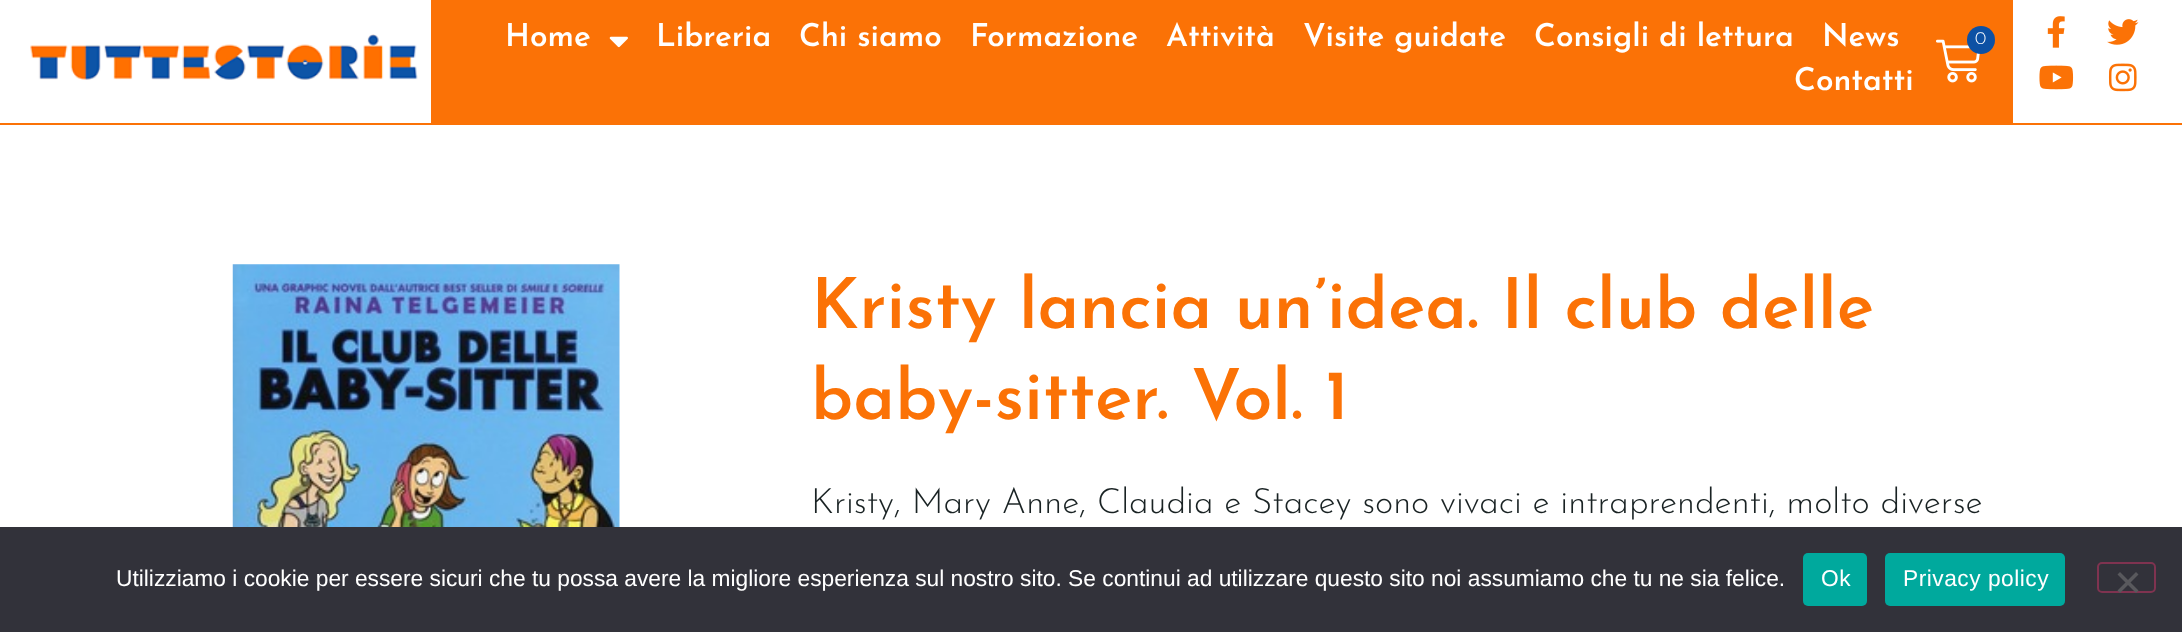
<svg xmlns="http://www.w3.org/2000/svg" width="2182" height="632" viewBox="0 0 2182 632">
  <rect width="100%" height="100%" fill="#ffffff"/>
  <rect x="0" y="123" width="2182" height="2" fill="#fb7206"/>
  <image x="30" y="34" width="388" height="46" href="img1.png"/>
  <rect x="431" y="0" width="1582" height="123" fill="#fb7206"/>
  <text x="505" y="46" font-family="Josefin Sans" font-size="31.5" font-weight="600" fill="#ffffff">Home</text>
  <image x="609" y="36" width="19" height="12" href="img2.png"/>
  <text x="656" y="46" font-family="Josefin Sans" font-size="31.5" font-weight="600" fill="#ffffff">Libreria</text>
  <text x="799" y="46" font-family="Josefin Sans" font-size="31.5" font-weight="600" fill="#ffffff">Chi siamo</text>
  <text x="970" y="46" font-family="Josefin Sans" font-size="31.5" font-weight="600" fill="#ffffff">Formazione</text>
  <text x="1166" y="46" font-family="Josefin Sans" font-size="31.5" font-weight="600" fill="#ffffff">Attività</text>
  <text x="1303" y="46" font-family="Josefin Sans" font-size="31.5" font-weight="600" fill="#ffffff">Visite guidate</text>
  <text x="1534" y="46" font-family="Josefin Sans" font-size="31.5" font-weight="600" fill="#ffffff">Consigli di lettura</text>
  <text x="1822" y="46" font-family="Josefin Sans" font-size="31.5" font-weight="600" fill="#ffffff">News</text>
  <text x="1794" y="90" font-family="Josefin Sans" font-size="31.5" font-weight="600" fill="#ffffff">Contatti</text>
  <image x="1936" y="39" width="44" height="44" href="img3.png"/>
  <circle cx="1981" cy="40" r="14" fill="#0d51a4"/>
  <text x="1975" y="44" font-family="Josefin Sans" font-size="18" font-weight="300" fill="#ffffff">0</text>
  <image x="2047" y="16" width="18" height="32" href="img4.png"/>
  <image x="2107" y="19" width="32" height="26" href="img5.png"/>
  <image x="2039" y="65" width="35" height="25" href="img6.png"/>
  <image x="2108" y="63" width="29" height="29" href="img7.png"/>
  <image x="232" y="264" width="388" height="263" href="img8.png"/>
  <text x="811" y="328" font-family="Josefin Sans" font-size="70" font-weight="600" fill="#fb7206">Kristy lancia un’idea. Il club delle</text>
  <text x="811" y="419" font-family="Josefin Sans" font-size="70" font-weight="600" fill="#fb7206">baby-sitter. Vol. 1</text>
  <text x="811" y="513" font-family="Josefin Sans" font-size="35" font-weight="300" fill="#192223">Kristy, Mary Anne, Claudia e Stacey sono vivaci e intraprendenti, molto diverse</text>
  <rect x="0" y="527" width="2182" height="105" fill="#32323a"/>
  <text x="116" y="586" font-family="Liberation Sans" font-size="22.75" fill="#ffffff">Utilizziamo i cookie per essere sicuri che tu possa avere la migliore esperienza sul nostro sito. Se continui ad utilizzare questo sito noi assumiamo che tu ne sia felice.</text>
  <rect x="1803" y="553" width="64" height="53" rx="5" fill="#00a99d"/>
  <text x="1821" y="586" font-family="Liberation Sans" font-size="22.75" letter-spacing="0.5" fill="#ffffff">Ok</text>
  <rect x="1885" y="553" width="180" height="53" rx="5" fill="#00a99d"/>
  <text x="1903" y="586" font-family="Liberation Sans" font-size="22.75" letter-spacing="0.5" fill="#ffffff">Privacy policy</text>
  <rect x="2098" y="563" width="57" height="29" rx="4" fill="none" stroke="#7f3350" stroke-width="2"/>
  <path d="M2136 572L2138.5 574.5L2120 593L2117.5 590.5Z" fill="#59595d"/>
  <path d="M2117.5 574.5L2120 572L2138.5 590.5L2136 593Z" fill="#59595d"/>
</svg>
